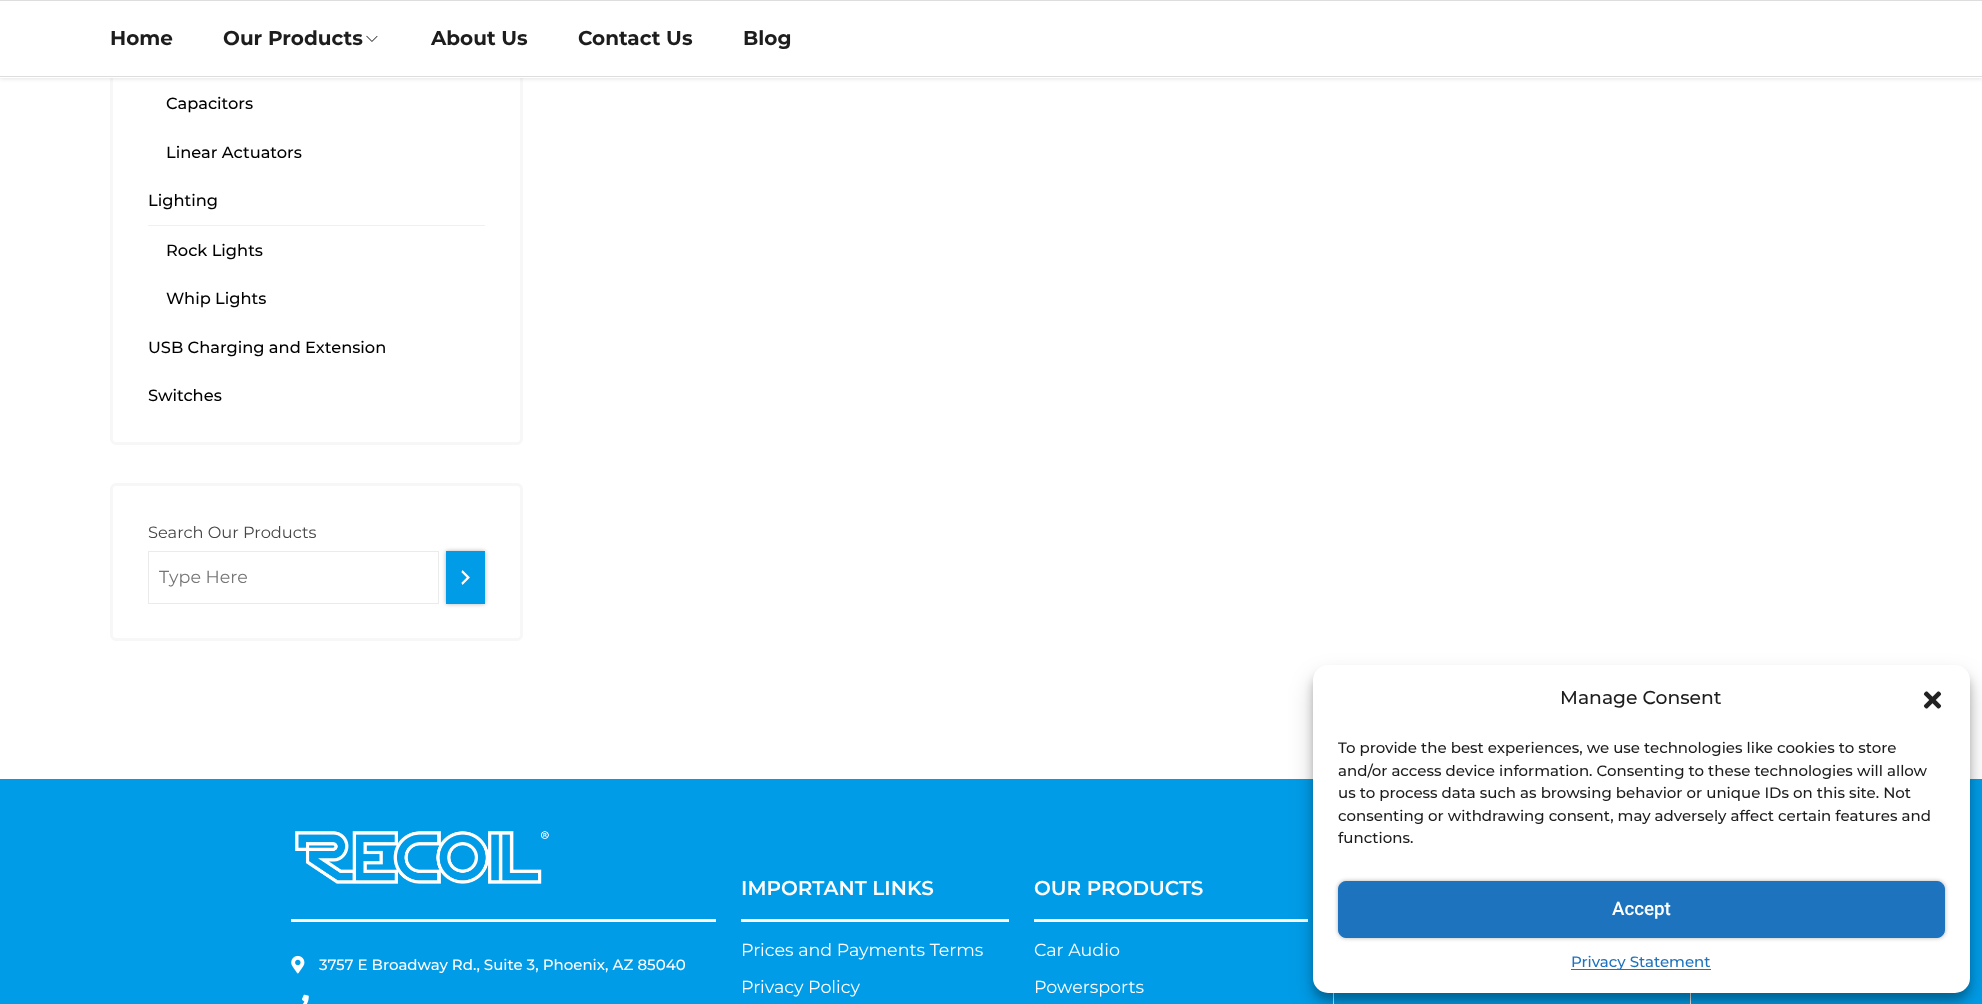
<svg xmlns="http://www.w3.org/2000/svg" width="1982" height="1004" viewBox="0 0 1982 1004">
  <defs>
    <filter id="blur1" x="-50%" y="-200%" width="200%" height="500%"><feGaussianBlur stdDeviation="2"/></filter>
    <filter id="blur2" x="-50%" y="-200%" width="200%" height="500%"><feGaussianBlur stdDeviation="4"/></filter>
    <filter id="blur3" x="-50%" y="-200%" width="200%" height="500%"><feGaussianBlur stdDeviation="12.5"/></filter>
  </defs>
  <rect width="100%" height="100%" fill="#ffffff"/>
  <rect x="111.5" y="-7.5" width="410" height="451" rx="4.5" fill="none" stroke="#f7f7f7" stroke-width="3"/>
  <rect x="0" y="1" width="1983" height="78" fill="#000000" fill-opacity="0.1" filter="url(#blur1)"/>
  <rect x="0" y="1" width="1982" height="77" fill="#ffffff"/>
  <rect x="0" y="0" width="1982" height="1" fill="#dddddd"/>
  <rect x="0" y="76" width="1982" height="1" fill="#dddddd"/>
  <text x="110" y="45" font-family="Montserrat" font-size="20" font-weight="bold" fill="#1d1d1d">Home</text>
  <text x="223" y="45" font-family="Montserrat" font-size="20" font-weight="bold" fill="#1d1d1d">Our Products</text>
  <image x="366" y="35" width="12" height="7" href="img1.png"/>
  <text x="431" y="45" font-family="Montserrat" font-size="20" font-weight="bold" fill="#1d1d1d">About Us</text>
  <text x="578" y="45" font-family="Montserrat" font-size="20" font-weight="bold" fill="#1d1d1d">Contact Us</text>
  <text x="743" y="45" font-family="Montserrat" font-size="20" font-weight="bold" fill="#1d1d1d">Blog</text>
  <text x="166" y="109" font-family="Montserrat" font-size="16.25" font-weight="500" fill="#000000">Capacitors</text>
  <text x="166" y="158" font-family="Montserrat" font-size="16.25" font-weight="500" fill="#000000">Linear Actuators</text>
  <text x="148" y="206" font-family="Montserrat" font-size="16.25" font-weight="500" fill="#000000">Lighting</text>
  <rect x="148" y="225" width="337" height="1" fill="#f0f0f0"/>
  <text x="166" y="256" font-family="Montserrat" font-size="16.25" font-weight="500" fill="#000000">Rock Lights</text>
  <text x="166" y="304" font-family="Montserrat" font-size="16.25" font-weight="500" fill="#000000">Whip Lights</text>
  <text x="148" y="353" font-family="Montserrat" font-size="16.25" font-weight="500" fill="#000000">USB Charging and Extension</text>
  <text x="148" y="401" font-family="Montserrat" font-size="16.25" font-weight="500" fill="#000000">Switches</text>
  <rect x="111.5" y="484.5" width="410" height="155" rx="4.5" fill="none" stroke="#f7f7f7" stroke-width="3"/>
  <text x="148" y="538" font-family="Montserrat" font-size="16.25" fill="#464646">Search Our Products</text>
  <rect x="148.5" y="551.5" width="290" height="52" fill="none" stroke="#ebebeb"/>
  <text x="159" y="583" font-family="Montserrat" font-size="17.5" fill="#757575">Type Here</text>
  <rect x="446" y="551" width="39" height="53" fill="#000000" fill-opacity="0.3" filter="url(#blur1)"/>
  <rect x="446" y="551" width="39" height="53" fill="#009ce8"/>
  <image x="461" y="570" width="9" height="15" href="img2.png"/>
  <rect x="0" y="779" width="1982" height="225" fill="#009ce8"/>
  <image x="295" y="831" width="254" height="53" href="img3.png"/>
  <rect x="291" y="919" width="425" height="3" fill="#ffffff"/>
  <image x="291" y="955" width="14" height="19" href="img4.png"/>
  <text x="319" y="970" font-family="Montserrat" font-size="15" font-weight="500" fill="#ffffff">3757 E Broadway Rd., Suite 3, Phoenix, AZ 85040</text>
  <image x="302" y="994" width="7" height="10" href="img5.png"/>
  <text x="741" y="895" font-family="Montserrat" font-size="20" font-weight="600" fill="#ffffff">IMPORTANT LINKS</text>
  <rect x="741" y="919" width="268" height="3" fill="#ffffff"/>
  <text x="741" y="956" font-family="Montserrat" font-size="17.5" fill="#ffffff">Prices and Payments Terms</text>
  <text x="741" y="993" font-family="Montserrat" font-size="17.5" fill="#ffffff">Privacy Policy</text>
  <text x="1034" y="895" font-family="Montserrat" font-size="20" font-weight="600" fill="#ffffff">OUR PRODUCTS</text>
  <rect x="1034" y="919" width="274" height="3" fill="#ffffff"/>
  <text x="1034" y="956" font-family="Montserrat" font-size="17.5" fill="#ffffff">Car Audio</text>
  <text x="1034" y="993" font-family="Montserrat" font-size="17.5" fill="#ffffff">Powersports</text>
  <rect x="1333.5" y="954.5" width="357" height="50" fill="none" stroke="#ebebeb"/>
  <rect x="1313" y="673" width="657" height="327" rx="15" fill="#000000" fill-opacity="0.23" filter="url(#blur2)"/>
  <rect x="1313" y="678" width="657" height="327" rx="15" fill="#000000" fill-opacity="0.19" filter="url(#blur3)"/>
  <rect x="1313" y="665" width="657" height="328" rx="15" fill="#ffffff"/>
  <text x="1560" y="704" font-family="Montserrat" font-size="18.75" font-weight="500" fill="#1d1d1d">Manage Consent</text>
  <image x="1923" y="691" width="19" height="18" href="img6.png"/>
  <text x="1338" y="753" font-family="Montserrat" font-size="15" font-weight="500" fill="#1d1d1d">To provide the best experiences, we use technologies like cookies to store</text>
  <text x="1338" y="776" font-family="Montserrat" font-size="15" font-weight="500" fill="#1d1d1d">and/or access device information. Consenting to these technologies will allow</text>
  <text x="1338" y="798" font-family="Montserrat" font-size="15" font-weight="500" fill="#1d1d1d">us to process data such as browsing behavior or unique IDs on this site. Not</text>
  <text x="1338" y="821" font-family="Montserrat" font-size="15" font-weight="500" fill="#1d1d1d">consenting or withdrawing consent, may adversely affect certain features and</text>
  <text x="1338" y="843" font-family="Montserrat" font-size="15" font-weight="500" fill="#1d1d1d">functions.</text>
  <rect x="1338" y="881" width="607" height="57" rx="8" fill="#000000" fill-opacity="0.3" filter="url(#blur1)"/>
  <rect x="1338.5" y="881.5" width="606" height="56" rx="7.5" fill="#1e73be" stroke="#1e73be"/>
  <text x="1612" y="915" font-family="Roboto" font-size="18.75" font-weight="500" fill="#ffffff">Accept</text>
  <rect x="1571" y="969" width="140" height="1" fill="#1e73be"/>
  <text x="1571" y="967" font-family="Montserrat" font-size="15" font-weight="500" fill="#1e73be">Privacy Statement</text>
</svg>
